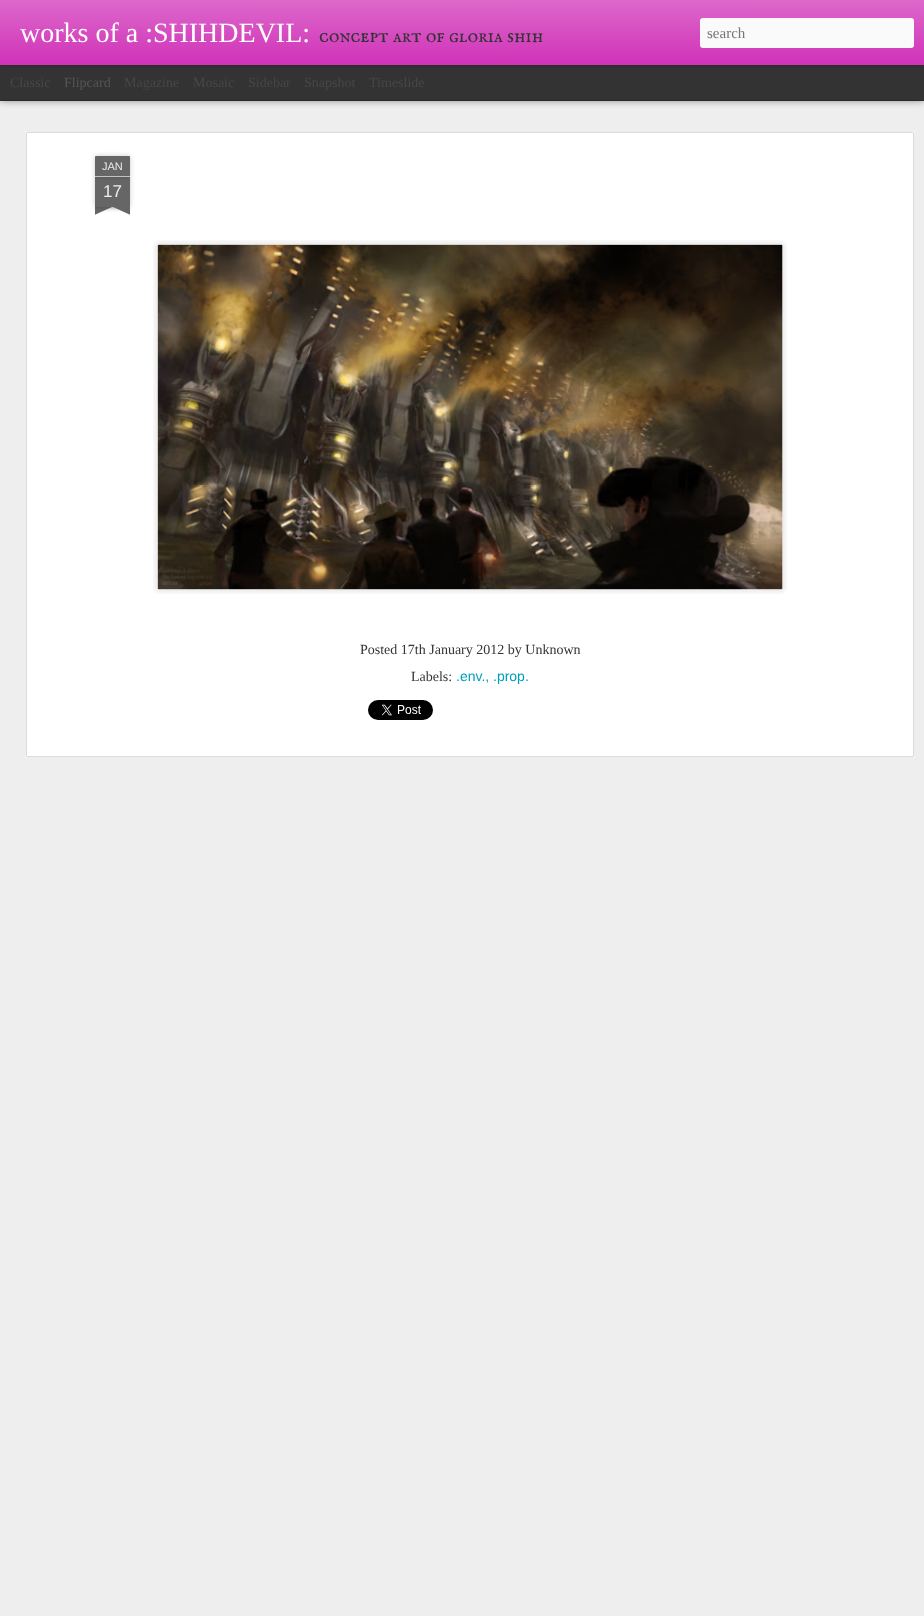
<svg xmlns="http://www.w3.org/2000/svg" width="924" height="1616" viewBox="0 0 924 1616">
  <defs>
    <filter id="blur1" x="-50%" y="-200%" width="200%" height="500%"><feGaussianBlur stdDeviation="4"/></filter>
    <filter id="blur2" x="-50%" y="-200%" width="200%" height="500%"><feGaussianBlur stdDeviation="2.5"/></filter>
    <linearGradient id="g1" gradientUnits="userSpaceOnUse" x1="0" y1="0" x2="0" y2="65"><stop offset="0" stop-color="#dd68cb"/><stop offset="1" stop-color="#d032b8"/></linearGradient>
    <clipPath id="clip1"><rect x="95" y="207" width="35" height="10"/></clipPath>
    <clipPath id="clip2"><rect x="95" y="207" width="35" height="10"/></clipPath>
  </defs>
  <rect width="100%" height="100%" fill="#333333"/>
  <rect x="0" y="101" width="924" height="1515" fill="#eeeeee"/>
  <rect x="0" y="65" width="924" height="35" fill="#000000" fill-opacity="0.5" filter="url(#blur1)"/>
  <rect x="0" y="65" width="924" height="35" fill="#333333"/>
  <rect x="0" y="0" width="924" height="65" fill="#000000" fill-opacity="0.3" filter="url(#blur2)"/>
  <rect x="0" y="0" width="924" height="65" fill="url(#g1)"/>
  <text x="20" y="42" font-family="Liberation Serif" font-size="28" fill="#ffffff">works of a :SHIHDEVIL:</text>
  <text x="319" y="42" font-family="IM FELL English SC" font-size="20" fill="#333333">concept art of gloria shih</text>
  <rect x="700" y="18" width="214" height="30" rx="3" fill="#fafafa"/>
  <text x="707" y="38" font-family="Liberation Serif" font-size="15" fill="#757575">search</text>
  <text x="10" y="87" font-family="Liberation Serif" font-size="14" fill="#474747">Classic</text>
  <text x="64" y="87" font-family="Liberation Serif" font-size="14" fill="#555555">Flipcard</text>
  <text x="124" y="87" font-family="Liberation Serif" font-size="14" fill="#474747">Magazine</text>
  <text x="193" y="87" font-family="Liberation Serif" font-size="14" fill="#474747">Mosaic</text>
  <text x="248" y="87" font-family="Liberation Serif" font-size="14" fill="#474747">Sidebar</text>
  <text x="304" y="87" font-family="Liberation Serif" font-size="14" fill="#474747">Snapshot</text>
  <text x="369" y="87" font-family="Liberation Serif" font-size="14" fill="#474747">Timeslide</text>
  <rect x="25" y="131" width="890" height="627" fill="#ffffff"/>
  <image x="25" y="131" width="890" height="627" href="img1.png"/>
  <rect x="95" y="177" width="35" height="30" fill="#000000" fill-opacity="0.2" filter="url(#blur2)"/>
  <rect x="95" y="177" width="35" height="30" fill="#666666"/>
  <rect x="95" y="156" width="35" height="21" rx="1" fill="#000000" fill-opacity="0.2" filter="url(#blur2)"/>
  <path d="M96 156H129C129.5 156 130 156.5 130 157V177H95V157C95 156.5 95.5 156 96 156Z" fill="#666666"/>
  <rect x="95" y="176" width="35" height="1" fill="#c2c2c2"/>
  <text x="102" y="170" font-family="Liberation Sans" font-size="11" fill="#eeeeee">JAN</text>
  <text x="103" y="197" font-family="Liberation Sans" font-size="17" fill="#eeeeee">17</text>
  <g clip-path="url(#clip1)">
    <rect x="86" y="197" width="50" height="10" fill="#000000" fill-opacity="0.2" filter="url(#blur2)"/>
  </g>
  <g clip-path="url(#clip2)">
    <path d="M86 208L132 187L136 196L90 217Z" fill="#666666"/>
  </g>
  <g clip-path="url(#clip1)">
    <rect x="89" y="197" width="50" height="10" fill="#000000" fill-opacity="0.2" filter="url(#blur2)"/>
  </g>
  <g clip-path="url(#clip2)">
    <path d="M93 187L139 208L135 217L89 196Z" fill="#666666"/>
  </g>
  <image x="153" y="240" width="634" height="354" href="img2.png"/>
  <image x="157" y="244" width="626" height="346" href="img3.png"/>
  <text x="360" y="654" font-family="Liberation Serif" font-size="14" fill="#333333">Posted 17th January 2012 by Unknown</text>
  <text x="411" y="681" font-family="Liberation Serif" font-size="14" fill="#333333">Labels:</text>
  <text x="456" y="681" font-family="Liberation Sans" font-size="14" fill="#009eb8">.env.,</text>
  <text x="493" y="681" font-family="Liberation Sans" font-size="14" fill="#009eb8">.prop.</text>
  <image x="368" y="700" width="65" height="20" href="img4.png"/>
</svg>
